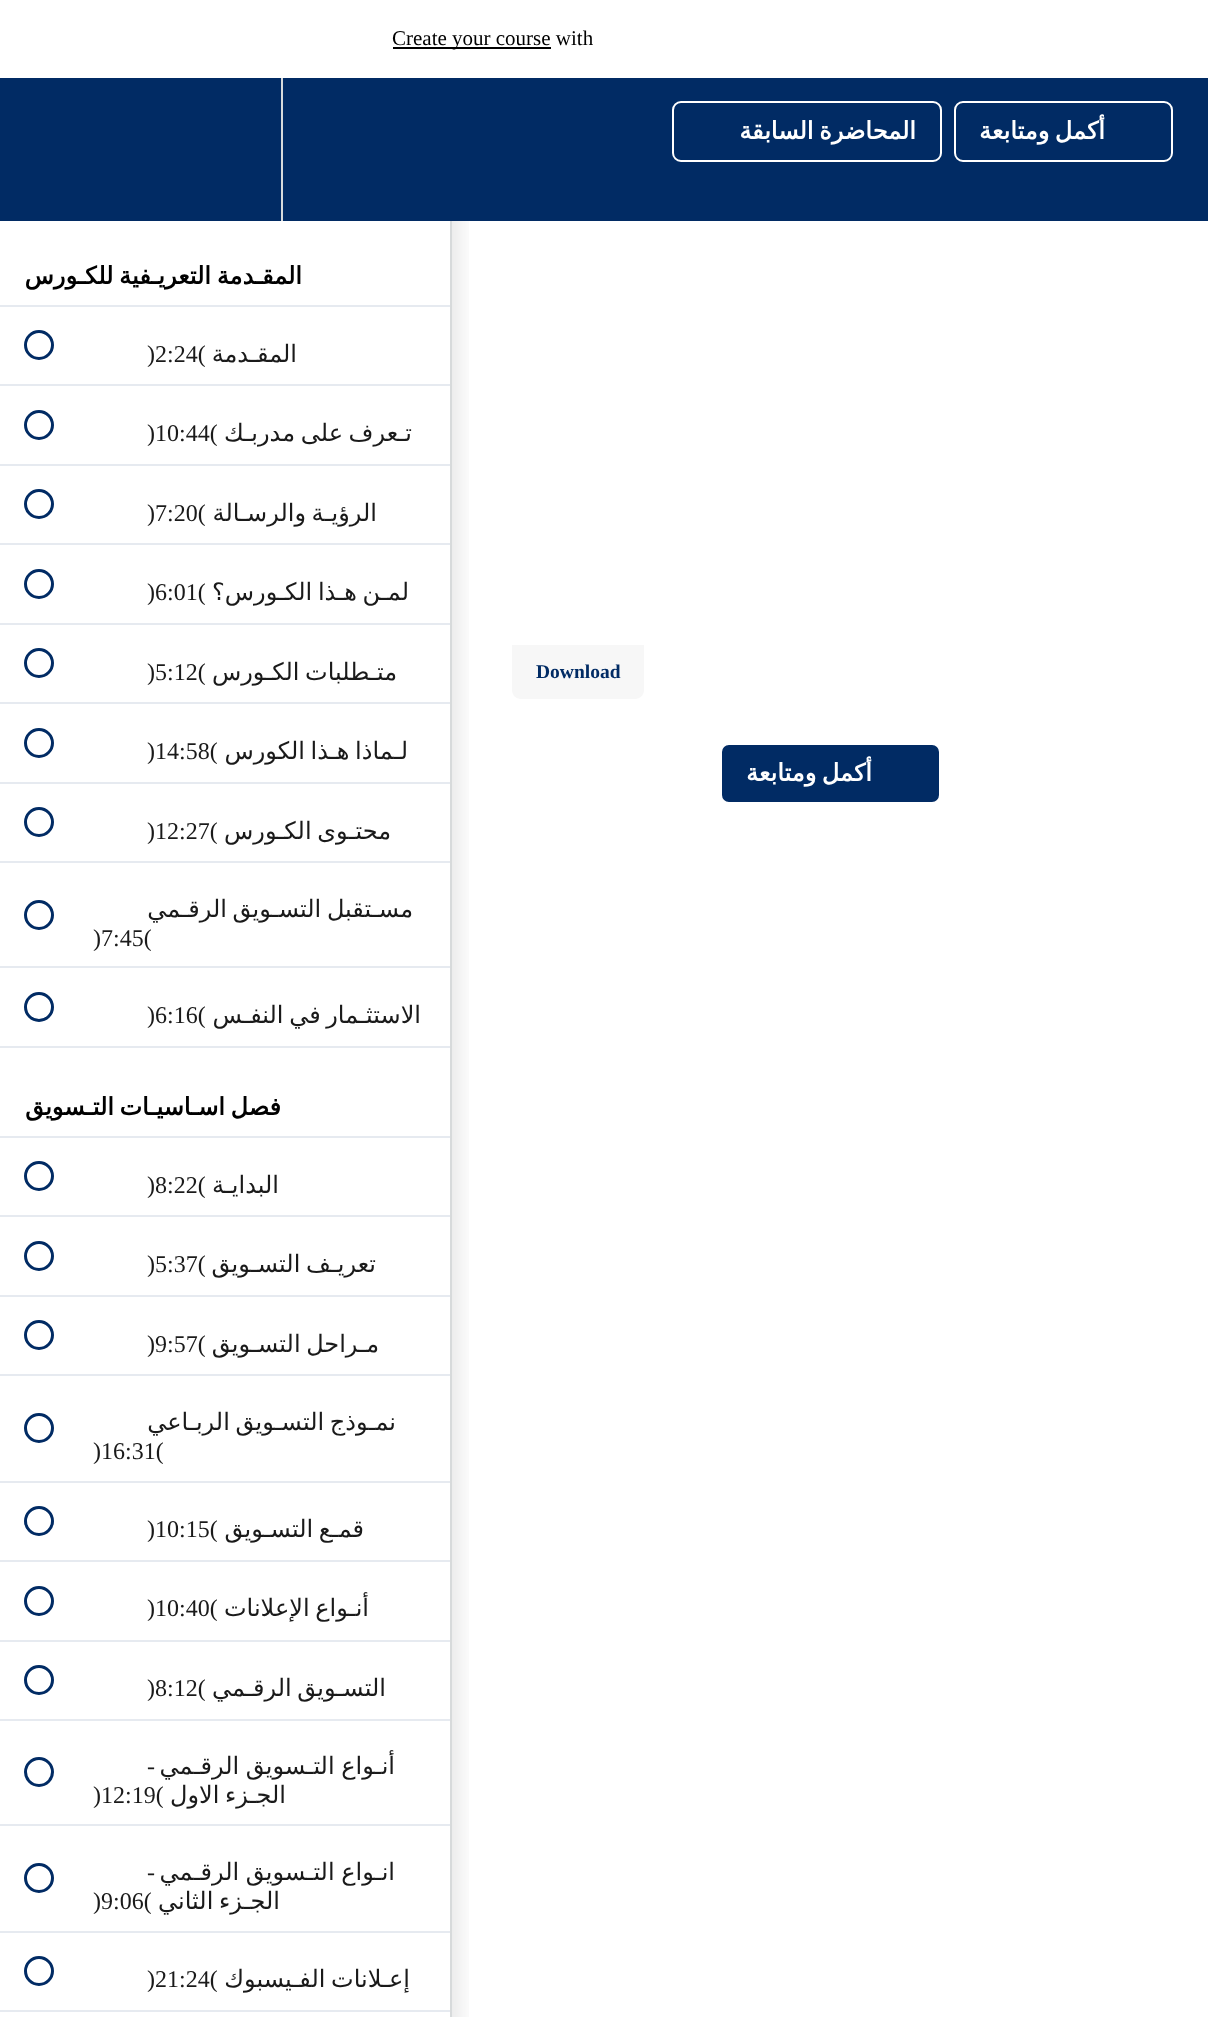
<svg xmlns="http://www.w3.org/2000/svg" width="1208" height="2017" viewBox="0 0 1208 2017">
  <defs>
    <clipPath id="clip1"><rect x="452" y="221" width="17" height="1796"/></clipPath>
    <filter id="blur1" x="-50%" y="-200%" width="200%" height="500%"><feGaussianBlur stdDeviation="15"/></filter>
  </defs>
  <rect width="100%" height="100%" fill="#ffffff"/>
  <g clip-path="url(#clip1)">
    <rect x="0" y="170" width="452" height="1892" fill="#20272d" fill-opacity="0.15" filter="url(#blur1)"/>
  </g>
  <rect x="0" y="78" width="1208" height="143" fill="#012b64"/>
  <rect x="393" y="47" width="158" height="2" fill="#000000"/>
  <text x="392" y="45" font-family="Liberation Serif" font-size="21" fill="#000000">Create your course with</text>
  <rect x="955" y="102" width="217" height="59" rx="8" fill="none" stroke="#ffffff" stroke-width="2"/>
  <text x="1105" y="139" word-spacing="-2" font-family="DejaVu Sans" font-size="24" font-weight="bold" direction="rtl" fill="#ffffff">أكمل ومتابعة</text>
  <rect x="673" y="102" width="268" height="59" rx="8" fill="none" stroke="#ffffff" stroke-width="2"/>
  <text x="916" y="139" word-spacing="-2" font-family="DejaVu Sans" font-size="24" font-weight="bold" direction="rtl" fill="#ffffff">المحاضرة السابقة</text>
  <rect x="281" y="78" width="2" height="143" fill="#d7dadb"/>
  <path d="M512 645H644V690C644 695 640 699 635 699H521C516 699 512 695 512 690Z" fill="#f7f7f7"/>
  <text x="536" y="678" font-family="Liberation Serif" font-size="19.5" font-weight="bold" fill="#012b64">Download</text>
  <rect x="721" y="744" width="219" height="59" rx="8" fill="#012b64" stroke="#ffffff" stroke-width="2"/>
  <text x="872" y="781" word-spacing="-2" font-family="DejaVu Sans" font-size="24" font-weight="bold" direction="rtl" fill="#ffffff">أكمل ومتابعة</text>
  <rect x="450" y="221" width="2" height="1796" fill="#d7dadb"/>
  <rect x="0" y="305" width="450" height="2" fill="#e6eaf0"/>
  <text x="302" y="284" word-spacing="-2" font-family="DejaVu Sans" font-size="24" font-weight="bold" direction="rtl" fill="#000000">المقـدمة التعريـفية للكـورس</text>
  <rect x="0" y="384" width="450" height="2" fill="#e6eaf0"/>
  <text x="297" y="362" font-family="DejaVu Sans" font-size="24" direction="rtl" fill="#1a1a1a">المقـدمة</text>
  <text x="147" y="362" font-family="Liberation Serif" font-size="24" fill="#1a1a1a">)2:24(</text>
  <circle cx="39" cy="345" r="13.5" fill="none" stroke="#012b64" stroke-width="3"/>
  <rect x="0" y="464" width="450" height="2" fill="#e6eaf0"/>
  <text x="412" y="441" word-spacing="-2" font-family="DejaVu Sans" font-size="24" direction="rtl" fill="#1a1a1a">تـعرف على مدربـك</text>
  <text x="147" y="441" font-family="Liberation Serif" font-size="24" fill="#1a1a1a">)10:44(</text>
  <circle cx="39" cy="425" r="13.5" fill="none" stroke="#012b64" stroke-width="3"/>
  <rect x="0" y="543" width="450" height="2" fill="#e6eaf0"/>
  <text x="377" y="521" word-spacing="-2" font-family="DejaVu Sans" font-size="24" direction="rtl" fill="#1a1a1a">الرؤيـة والرسـالة</text>
  <text x="147" y="521" font-family="Liberation Serif" font-size="24" fill="#1a1a1a">)7:20(</text>
  <circle cx="39" cy="504" r="13.5" fill="none" stroke="#012b64" stroke-width="3"/>
  <rect x="0" y="623" width="450" height="2" fill="#e6eaf0"/>
  <text x="409" y="600" word-spacing="-2" font-family="DejaVu Sans" font-size="24" direction="rtl" fill="#1a1a1a">لمـن هـذا الكـورس؟</text>
  <text x="147" y="600" font-family="Liberation Serif" font-size="24" fill="#1a1a1a">)6:01(</text>
  <circle cx="39" cy="584" r="13.5" fill="none" stroke="#012b64" stroke-width="3"/>
  <rect x="0" y="702" width="450" height="2" fill="#e6eaf0"/>
  <text x="397" y="680" word-spacing="-2" font-family="DejaVu Sans" font-size="24" direction="rtl" fill="#1a1a1a">متـطلبات الكـورس</text>
  <text x="147" y="680" font-family="Liberation Serif" font-size="24" fill="#1a1a1a">)5:12(</text>
  <circle cx="39" cy="663" r="13.5" fill="none" stroke="#012b64" stroke-width="3"/>
  <rect x="0" y="782" width="450" height="2" fill="#e6eaf0"/>
  <text x="408" y="759" word-spacing="-2" font-family="DejaVu Sans" font-size="24" direction="rtl" fill="#1a1a1a">لـماذا هـذا الكورس</text>
  <text x="147" y="759" font-family="Liberation Serif" font-size="24" fill="#1a1a1a">)14:58(</text>
  <circle cx="39" cy="743" r="13.5" fill="none" stroke="#012b64" stroke-width="3"/>
  <rect x="0" y="861" width="450" height="2" fill="#e6eaf0"/>
  <text x="391" y="839" word-spacing="-2" font-family="DejaVu Sans" font-size="24" direction="rtl" fill="#1a1a1a">محتـوى الكـورس</text>
  <text x="147" y="839" font-family="Liberation Serif" font-size="24" fill="#1a1a1a">)12:27(</text>
  <circle cx="39" cy="822" r="13.5" fill="none" stroke="#012b64" stroke-width="3"/>
  <rect x="0" y="966" width="450" height="2" fill="#e6eaf0"/>
  <text x="413" y="917" word-spacing="-2" font-family="DejaVu Sans" font-size="24" direction="rtl" fill="#1a1a1a">مسـتقبل التسـويق الرقـمي</text>
  <text x="93" y="946" font-family="Liberation Serif" font-size="24" fill="#1a1a1a">)7:45(</text>
  <circle cx="39" cy="915" r="13.5" fill="none" stroke="#012b64" stroke-width="3"/>
  <rect x="0" y="1046" width="450" height="2" fill="#e6eaf0"/>
  <text x="421" y="1023" word-spacing="-2" font-family="DejaVu Sans" font-size="24" direction="rtl" fill="#1a1a1a">الاستثـمار في النفـس</text>
  <text x="147" y="1023" font-family="Liberation Serif" font-size="24" fill="#1a1a1a">)6:16(</text>
  <circle cx="39" cy="1007" r="13.5" fill="none" stroke="#012b64" stroke-width="3"/>
  <rect x="0" y="1136" width="450" height="2" fill="#e6eaf0"/>
  <text x="281" y="1115" word-spacing="-2" font-family="DejaVu Sans" font-size="24" font-weight="bold" direction="rtl" fill="#000000">فصل اسـاسيـات التـسويق</text>
  <rect x="0" y="1215" width="450" height="2" fill="#e6eaf0"/>
  <text x="279" y="1193" font-family="DejaVu Sans" font-size="24" direction="rtl" fill="#1a1a1a">البدايـة</text>
  <text x="147" y="1193" font-family="Liberation Serif" font-size="24" fill="#1a1a1a">)8:22(</text>
  <circle cx="39" cy="1176" r="13.5" fill="none" stroke="#012b64" stroke-width="3"/>
  <rect x="0" y="1295" width="450" height="2" fill="#e6eaf0"/>
  <text x="376" y="1272" word-spacing="-2" font-family="DejaVu Sans" font-size="24" direction="rtl" fill="#1a1a1a">تعريـف التسـويق</text>
  <text x="147" y="1272" font-family="Liberation Serif" font-size="24" fill="#1a1a1a">)5:37(</text>
  <circle cx="39" cy="1256" r="13.5" fill="none" stroke="#012b64" stroke-width="3"/>
  <rect x="0" y="1374" width="450" height="2" fill="#e6eaf0"/>
  <text x="379" y="1352" word-spacing="-2" font-family="DejaVu Sans" font-size="24" direction="rtl" fill="#1a1a1a">مـراحل التسـويق</text>
  <text x="147" y="1352" font-family="Liberation Serif" font-size="24" fill="#1a1a1a">)9:57(</text>
  <circle cx="39" cy="1335" r="13.5" fill="none" stroke="#012b64" stroke-width="3"/>
  <rect x="0" y="1481" width="450" height="2" fill="#e6eaf0"/>
  <text x="396" y="1430" word-spacing="-2" font-family="DejaVu Sans" font-size="24" direction="rtl" fill="#1a1a1a">نمـوذج التسـويق الربـاعي</text>
  <text x="93" y="1459" font-family="Liberation Serif" font-size="24" fill="#1a1a1a">)16:31(</text>
  <circle cx="39" cy="1428" r="13.5" fill="none" stroke="#012b64" stroke-width="3"/>
  <rect x="0" y="1560" width="450" height="2" fill="#e6eaf0"/>
  <text x="364" y="1537" word-spacing="-2" font-family="DejaVu Sans" font-size="24" direction="rtl" fill="#1a1a1a">قمـع التسـويق</text>
  <text x="147" y="1537" font-family="Liberation Serif" font-size="24" fill="#1a1a1a">)10:15(</text>
  <circle cx="39" cy="1521" r="13.5" fill="none" stroke="#012b64" stroke-width="3"/>
  <rect x="0" y="1640" width="450" height="2" fill="#e6eaf0"/>
  <text x="369" y="1616" word-spacing="-2" font-family="DejaVu Sans" font-size="24" direction="rtl" fill="#1a1a1a">أنـواع الإعلانات</text>
  <text x="147" y="1616" font-family="Liberation Serif" font-size="24" fill="#1a1a1a">)10:40(</text>
  <circle cx="39" cy="1601" r="13.5" fill="none" stroke="#012b64" stroke-width="3"/>
  <rect x="0" y="1719" width="450" height="2" fill="#e6eaf0"/>
  <text x="386" y="1696" word-spacing="-2" font-family="DejaVu Sans" font-size="24" direction="rtl" fill="#1a1a1a">التسـويق الرقـمي</text>
  <text x="147" y="1696" font-family="Liberation Serif" font-size="24" fill="#1a1a1a">)8:12(</text>
  <circle cx="39" cy="1680" r="13.5" fill="none" stroke="#012b64" stroke-width="3"/>
  <rect x="0" y="1824" width="450" height="2" fill="#e6eaf0"/>
  <text x="395" y="1774" word-spacing="-1" font-family="DejaVu Sans" font-size="24" direction="rtl" fill="#1a1a1a">أنـواع التـسويق الرقـمي</text>
  <text x="155" y="1774" font-family="Liberation Serif" font-size="24" direction="rtl" fill="#1a1a1a">-</text>
  <text x="286" y="1803" word-spacing="-2" font-family="DejaVu Sans" font-size="24" direction="rtl" fill="#1a1a1a">الجـزء الاول</text>
  <text x="93" y="1803" font-family="Liberation Serif" font-size="24" fill="#1a1a1a">)12:19(</text>
  <circle cx="39" cy="1772" r="13.5" fill="none" stroke="#012b64" stroke-width="3"/>
  <rect x="0" y="1931" width="450" height="2" fill="#e6eaf0"/>
  <text x="395" y="1880" word-spacing="-1" font-family="DejaVu Sans" font-size="24" direction="rtl" fill="#1a1a1a">انـواع التـسويق الرقـمي</text>
  <text x="155" y="1880" font-family="Liberation Serif" font-size="24" direction="rtl" fill="#1a1a1a">-</text>
  <text x="280" y="1909" word-spacing="-2" font-family="DejaVu Sans" font-size="24" direction="rtl" fill="#1a1a1a">الجـزء الثاني</text>
  <text x="93" y="1909" font-family="Liberation Serif" font-size="24" fill="#1a1a1a">)9:06(</text>
  <circle cx="39" cy="1878" r="13.5" fill="none" stroke="#012b64" stroke-width="3"/>
  <rect x="0" y="2010" width="450" height="2" fill="#e6eaf0"/>
  <text x="410" y="1987" word-spacing="-2" font-family="DejaVu Sans" font-size="24" direction="rtl" fill="#1a1a1a">إعـلانات الفـيسبوك</text>
  <text x="147" y="1987" font-family="Liberation Serif" font-size="24" fill="#1a1a1a">)21:24(</text>
  <circle cx="39" cy="1971" r="13.5" fill="none" stroke="#012b64" stroke-width="3"/>
</svg>
